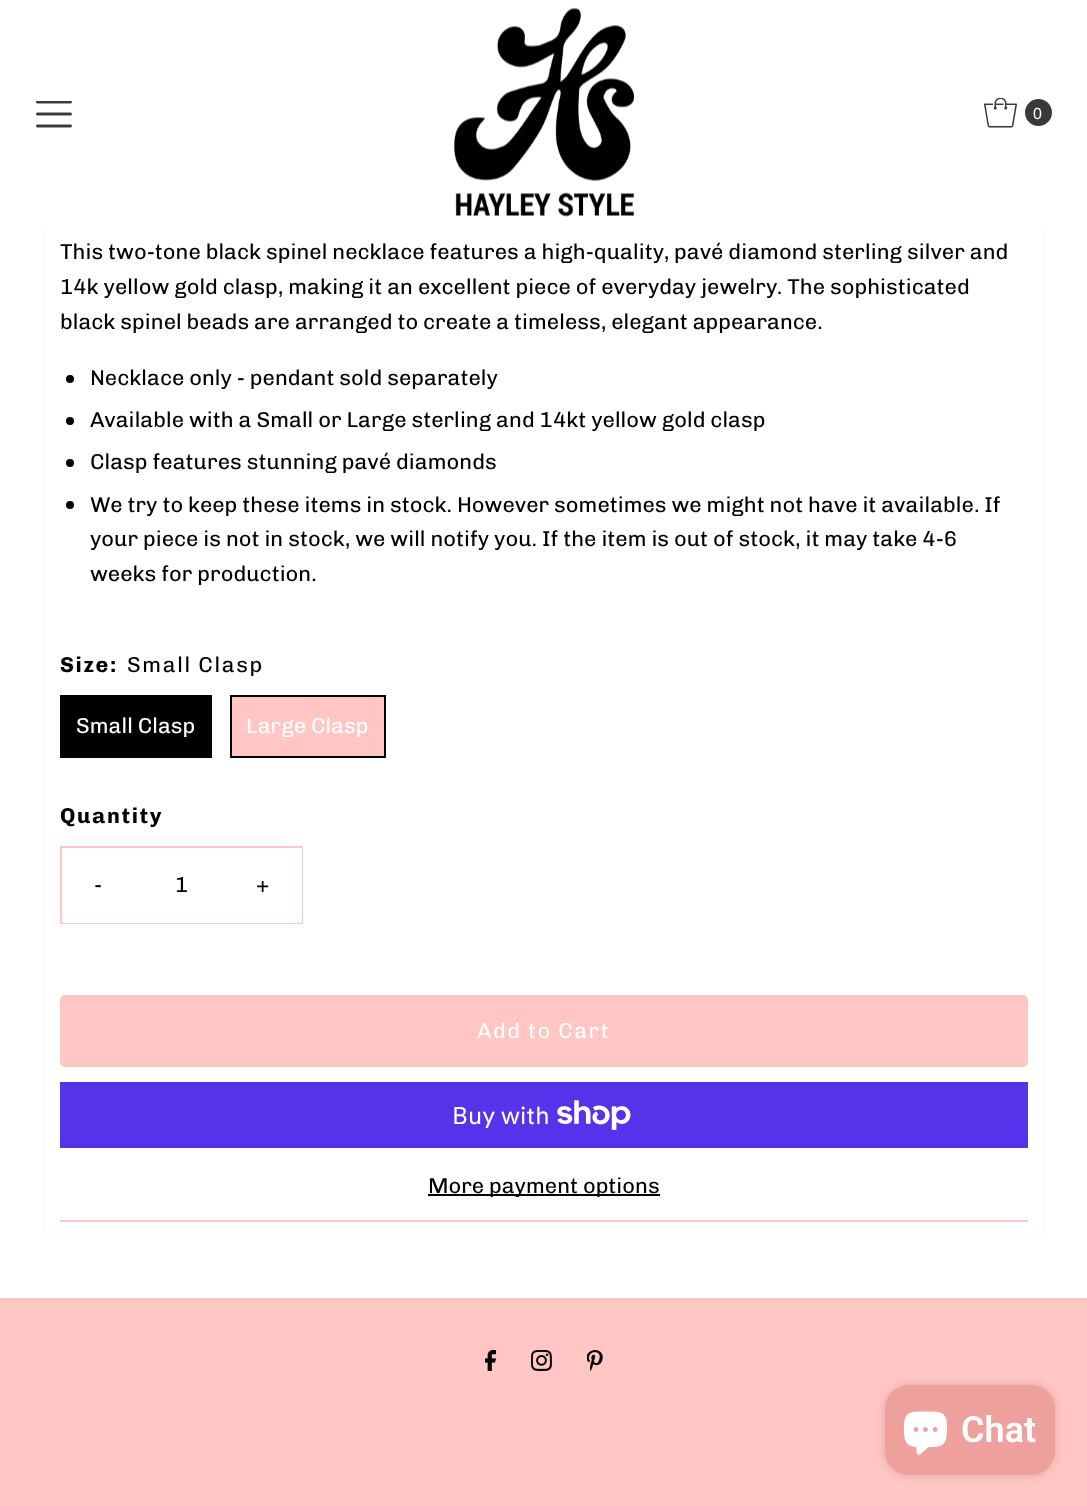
<svg xmlns="http://www.w3.org/2000/svg" width="1087" height="1506" viewBox="0 0 1087 1506">
  <defs>
    <filter id="blur1" x="-50%" y="-200%" width="200%" height="500%"><feGaussianBlur stdDeviation="4"/></filter>
  </defs>
  <rect width="100%" height="100%" fill="#ffffff"/>
  <rect x="45" y="-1" width="998" height="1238" fill="none" stroke="#fbfbfb" stroke-width="2"/>
  <rect x="44" y="0" width="1000" height="225" fill="#ffffff"/>
  <image x="36" y="101" width="36" height="27" href="img1.png"/>
  <image x="454" y="7" width="180" height="210" href="img2.png"/>
  <image x="984" y="98" width="33" height="30" href="img3.png"/>
  <circle cx="1038.5" cy="112.5" r="13.5" fill="#393939"/>
  <text x="1033" y="119" font-family="Liberation Sans" font-size="16" fill="#ffffff">0</text>
  <text x="60" y="259" font-family="Chivo" font-size="21.65" fill="#000000">This two-tone black spinel necklace features a high-quality, pavé diamond sterling silver and</text>
  <text x="60" y="294" font-family="Chivo" font-size="21.65" fill="#000000">14k yellow gold clasp, making it an excellent piece of everyday jewelry. The sophisticated</text>
  <text x="60" y="329" font-family="Chivo" font-size="21.65" fill="#000000">black spinel beads are arranged to create a timeless, elegant appearance.</text>
  <circle cx="70" cy="379" r="4" fill="#000000"/>
  <text x="90" y="385" font-family="Chivo" font-size="21.65" fill="#000000">Necklace only - pendant sold separately</text>
  <circle cx="70" cy="421" r="4" fill="#000000"/>
  <text x="90" y="427" font-family="Chivo" font-size="21.65" fill="#000000">Available with a Small or Large sterling and 14kt yellow gold clasp</text>
  <circle cx="70" cy="463" r="4" fill="#000000"/>
  <text x="90" y="469" font-family="Chivo" font-size="21.65" fill="#000000">Clasp features stunning pavé diamonds</text>
  <circle cx="70" cy="505" r="4" fill="#000000"/>
  <text x="90" y="512" font-family="Chivo" font-size="21.65" fill="#000000">We try to keep these items in stock. However sometimes we might not have it available. If</text>
  <text x="90" y="546" font-family="Chivo" font-size="21.65" fill="#000000">your piece is not in stock, we will notify you. If the item is out of stock, it may take 4-6</text>
  <text x="90" y="581" font-family="Chivo" font-size="21.65" fill="#000000">weeks for production.</text>
  <text x="60" y="672" font-family="Chivo" font-size="21.65" font-weight="bold" letter-spacing="1.6" fill="#000000">Size:</text>
  <text x="127" y="672" font-family="Chivo" font-size="21.65" letter-spacing="1.6" fill="#000000">Small Clasp</text>
  <rect x="60" y="695" width="152" height="63" fill="#000000"/>
  <text x="76" y="733" font-family="Chivo" font-size="21.65" fill="#ffffff">Small Clasp</text>
  <rect x="231" y="696" width="154" height="61" fill="#ffc6c3" stroke="#000000" stroke-width="2"/>
  <text x="246" y="733" font-family="Chivo" font-size="21.65" fill="#ffffff">Large Clasp</text>
  <text x="60" y="823" font-family="Chivo" font-size="21.65" font-weight="bold" letter-spacing="1.6" fill="#000000">Quantity</text>
  <rect x="61" y="847" width="241" height="76" fill="none" stroke="#ffc6c3" stroke-width="2"/>
  <rect x="62" y="922" width="165" height="1" fill="#ffffff"/>
  <text x="94" y="892" font-family="Chivo" font-size="21.65" letter-spacing="1.5" fill="#000000">-</text>
  <text x="175" y="892" font-family="Chivo" font-size="21.65" fill="#000000">1</text>
  <rect x="227" y="848" width="75" height="75" fill="#ffffff"/>
  <text x="256" y="892" font-family="Chivo" font-size="21.65" letter-spacing="1.5" fill="#000000">+</text>
  <rect x="60" y="1220" width="968" height="2" fill="#ffc6c3"/>
  <rect x="60" y="995" width="968" height="72" rx="5" fill="#ffc6c3"/>
  <text x="477" y="1038" font-family="Chivo" font-size="21.65" letter-spacing="1.5" fill="#ffffff">Add to Cart</text>
  <rect x="60" y="1082" width="968" height="66" fill="#5433eb"/>
  <text x="452" y="1124" font-family="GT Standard" font-size="24" fill="#ffffff">Buy with</text>
  <image x="557" y="1100" width="74" height="30" href="img4.png"/>
  <rect x="428" y="1194" width="232" height="2" fill="#000000"/>
  <text x="428" y="1193" font-family="Chivo" font-size="21.65" fill="#000000">More payment options</text>
  <rect x="0" y="1298" width="1087" height="208" fill="#ffc6c3"/>
  <image x="485" y="1350" width="12" height="21" href="img5.png"/>
  <image x="531" y="1350" width="21" height="21" href="img6.png"/>
  <image x="587" y="1350" width="16" height="21" href="img7.png"/>
  <rect x="885" y="1385" width="170" height="90" rx="24" fill="#000000" fill-opacity="0.15" filter="url(#blur1)"/>
  <rect x="885" y="1385" width="170" height="90" rx="24" fill="#eda09c"/>
  <image x="903" y="1411" width="45" height="44" href="img8.png"/>
  <text x="961" y="1442" font-family="Roboto" font-size="36" font-weight="600" fill="#ffffff">Chat</text>
</svg>
